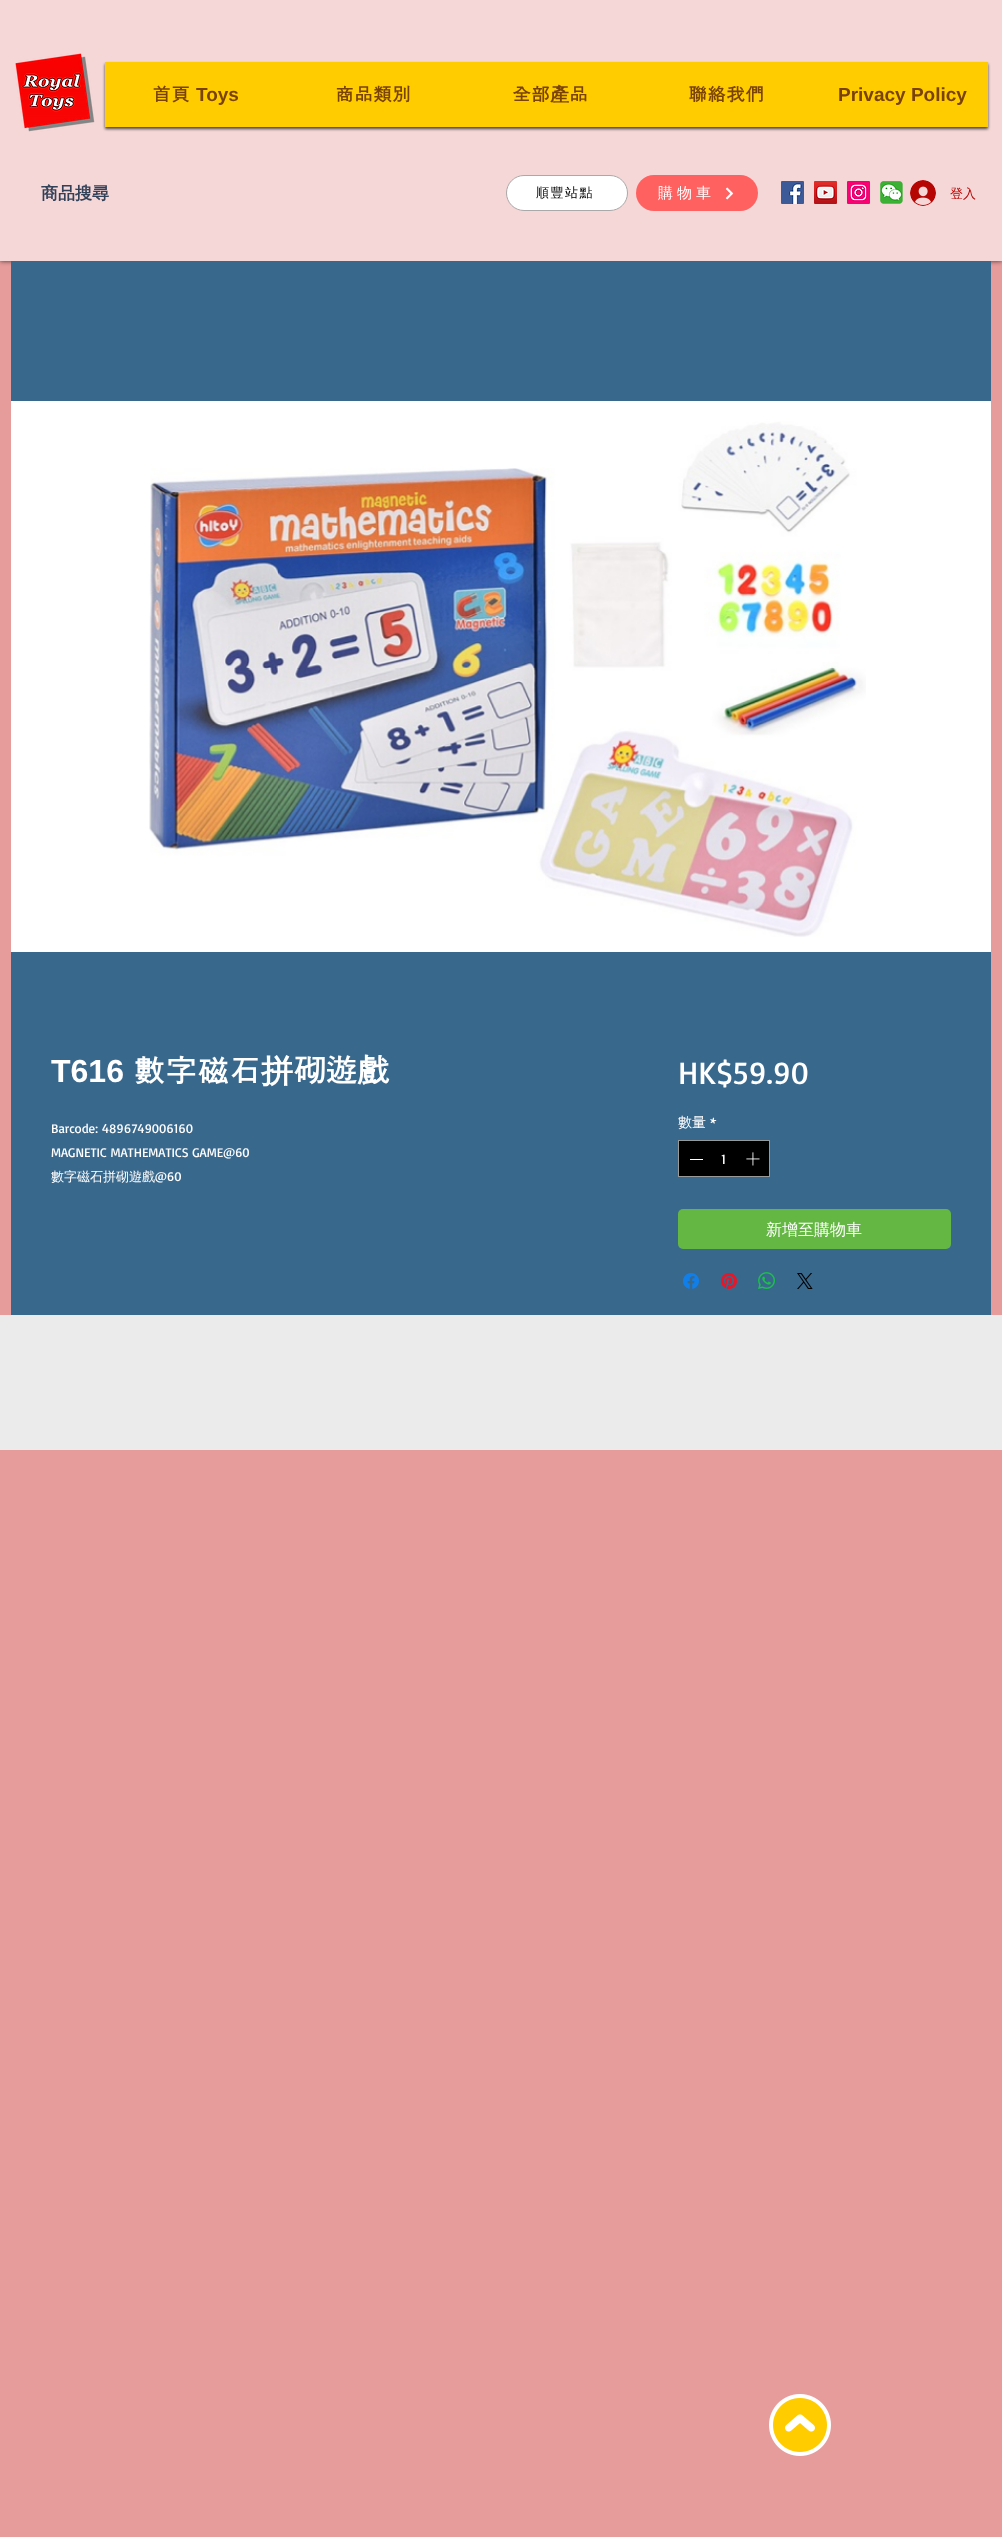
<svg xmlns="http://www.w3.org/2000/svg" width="1002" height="2537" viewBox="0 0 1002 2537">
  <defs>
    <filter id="blur1" x="-50%" y="-200%" width="200%" height="500%"><feGaussianBlur stdDeviation="2.5"/></filter>
    <filter id="blur2" x="-50%" y="-200%" width="200%" height="500%"><feGaussianBlur stdDeviation="1.5"/></filter>
  </defs>
  <rect width="100%" height="100%" fill="#e69c9b"/>
  <rect x="0" y="0" width="1002" height="261" fill="#000000" fill-opacity="0.7" filter="url(#blur1)"/>
  <rect x="0" y="0" width="1002" height="261" fill="#f5d7d7"/>
  <image x="15" y="53" width="80" height="79" href="img1.png"/>
  <rect x="105" y="64" width="883" height="65" fill="#000000" fill-opacity="0.7" filter="url(#blur2)"/>
  <rect x="105" y="62" width="883" height="65" fill="#ffcc00"/>
  <text x="152" y="101" font-family="Dotum" font-size="19" font-weight="bold" fill="#7a4201">首頁</text>
  <text x="196" y="101" font-family="Liberation Sans" font-size="19" font-weight="bold" fill="#7a4201">Toys</text>
  <text x="335" y="101" font-family="Dotum" font-size="19" font-weight="bold" fill="#7a4201">商品類別</text>
  <text x="512" y="101" font-family="Dotum" font-size="19" font-weight="bold" fill="#7a4201">全部</text>
  <text x="550" y="101" font-family="WenQuanYi Zen Hei" font-size="19" font-weight="bold" fill="#7a4201">產</text>
  <text x="569" y="101" font-family="Dotum" font-size="19" font-weight="bold" fill="#7a4201">品</text>
  <text x="688" y="101" font-family="Dotum" font-size="19" font-weight="bold" fill="#7a4201">聯絡我們</text>
  <text x="838" y="101" font-family="Liberation Sans" font-size="19" font-weight="bold" fill="#7a4201">Privacy Policy</text>
  <text x="41" y="199" font-family="WenQuanYi Zen Hei" font-size="17" font-weight="bold" fill="#324158">商品搜尋</text>
  <rect x="506.5" y="175.5" width="121" height="35" rx="17.5" fill="#ffffff" stroke="#aaa8a8"/>
  <text x="536" y="197" font-family="WenQuanYi Zen Hei" font-size="13" font-weight="500" letter-spacing="1.5" fill="#000000">順豐站點</text>
  <rect x="636" y="175" width="122" height="36" rx="18" fill="#ff6161"/>
  <text x="658" y="198" font-family="WenQuanYi Zen Hei" font-size="15" font-weight="500" letter-spacing="4" fill="#ffffff">購物車</text>
  <image x="725" y="187" width="9" height="13" href="img2.png"/>
  <image x="781" y="181" width="23" height="23" href="img3.png"/>
  <image x="814" y="181" width="23" height="23" href="img4.png"/>
  <image x="847" y="181" width="23" height="23" href="img5.png"/>
  <image x="880" y="181" width="23" height="23" href="img6.png"/>
  <image x="910" y="180" width="26" height="26" href="img7.png"/>
  <text x="950" y="198" font-family="WenQuanYi Zen Hei" font-size="13" font-weight="500" fill="#b50603">登入</text>
  <rect x="11" y="261" width="980" height="1054" fill="#39688d"/>
  <rect x="11" y="401" width="980" height="551" fill="#ffffff"/>
  <image x="149" y="421" width="717" height="516" href="img8.png"/>
  <text x="51" y="1082" font-family="Liberation Sans" font-size="32" font-weight="bold" fill="#ffffff">T616</text>
  <text x="133" y="1082" font-family="Dotum" font-size="32" font-weight="bold" fill="#ffffff">數字磁石</text>
  <text x="261" y="1082" font-family="WenQuanYi Zen Hei" font-size="32" font-weight="bold" fill="#ffffff">拼</text>
  <text x="293" y="1082" font-family="Dotum" font-size="32" font-weight="bold" fill="#ffffff">砌遊戲</text>
  <text x="51" y="1133" font-family="Basic" font-size="13" fill="#ffffff">Barcode:</text>
  <text x="102" y="1133" font-family="Basic" font-size="13" fill="#ffffff">4896749006160</text>
  <text x="51" y="1157" font-family="Basic" font-size="13" fill="#ffffff">MAGNETIC MATHEMATICS GAME@60</text>
  <text x="51" y="1181" font-family="WenQuanYi Zen Hei" font-size="13" font-weight="500" fill="#ffffff">數字磁石拼砌遊戲</text>
  <text x="155" y="1181" font-family="Basic" font-size="13" fill="#ffffff">@60</text>
  <text x="678" y="1084" font-family="Basic" font-size="32" fill="#ffffff">HK$59.90</text>
  <text x="678" y="1127" font-family="WenQuanYi Zen Hei" font-size="14" font-weight="500" fill="#ffffff">數量</text>
  <text x="710" y="1127" font-family="Basic" font-size="14" fill="#ffffff">*</text>
  <rect x="678.5" y="1140.5" width="91" height="36" fill="#000000" stroke="#999999"/>
  <rect x="690" y="1159" width="13" height="1" fill="#ffffff"/>
  <text x="721" y="1164" font-family="Basic" font-size="14" fill="#ffffff">1</text>
  <image x="746" y="1152" width="14" height="14" href="img9.png"/>
  <rect x="678" y="1209" width="273" height="40" rx="5" fill="#64b743"/>
  <text x="766" y="1235" font-family="WenQuanYi Zen Hei" font-size="16" font-weight="500" fill="#ffffff">新增至購物車</text>
  <image x="683" y="1273" width="16" height="16" href="img10.png"/>
  <image x="721" y="1273" width="16" height="16" href="img11.png"/>
  <image x="758" y="1272" width="17" height="17" href="img12.png"/>
  <image x="797" y="1273" width="16" height="16" href="img13.png"/>
  <rect x="0" y="1315" width="1002" height="135" fill="#ebebeb"/>
  <image x="769" y="2394" width="62" height="62" href="img14.png"/>
</svg>
